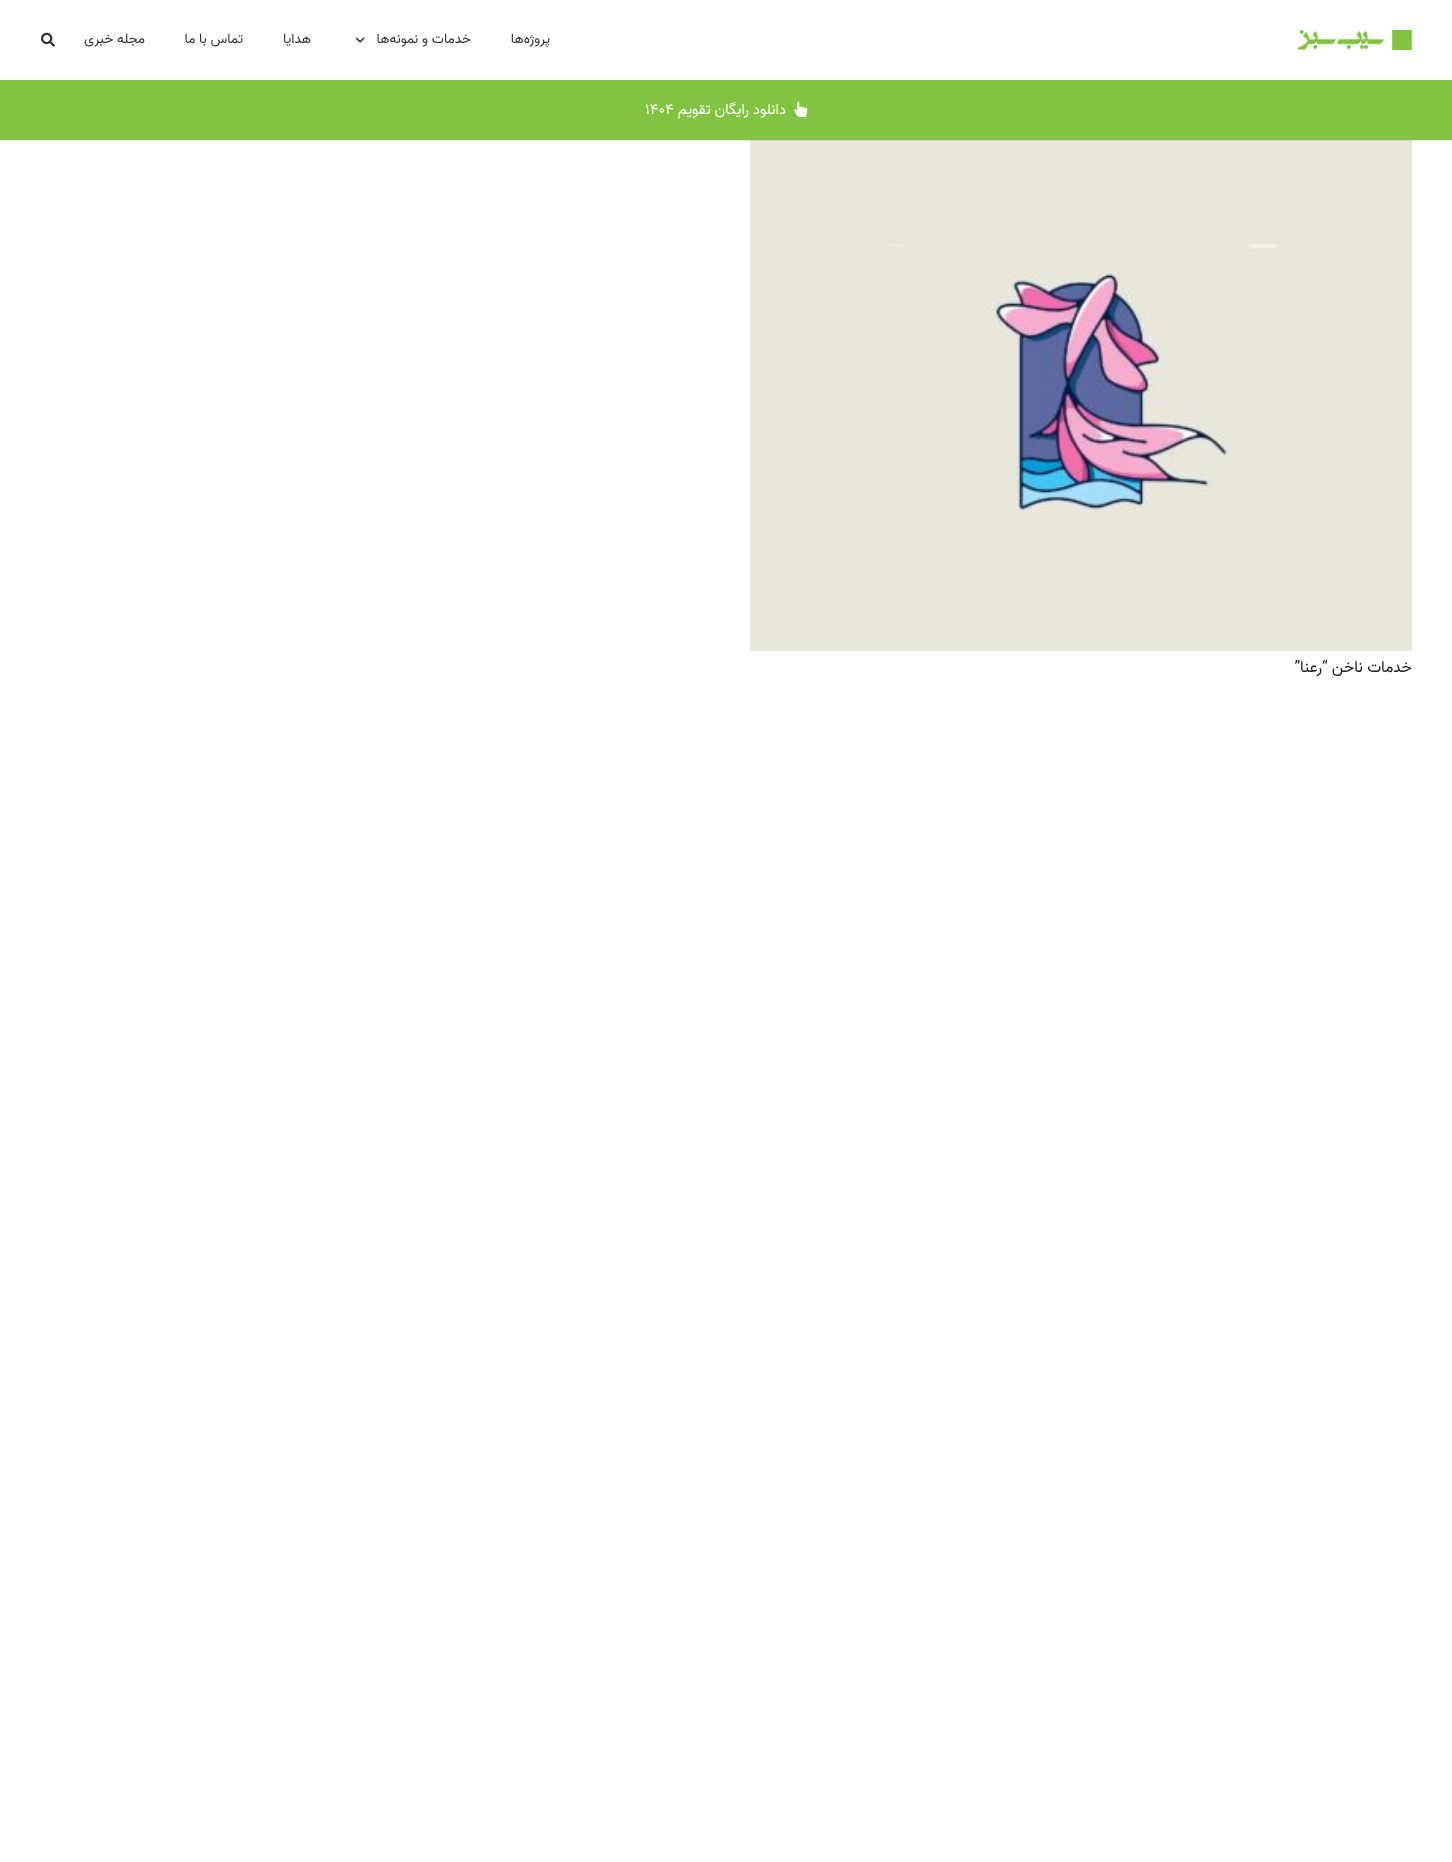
<svg xmlns="http://www.w3.org/2000/svg" width="1452" height="1862" viewBox="0 0 1452 1862">
  <rect width="100%" height="100%" fill="#ffffff"/>
  <image x="1297" y="30" width="115" height="20" href="img1.png"/>
  <text x="550" y="43" font-family="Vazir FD" font-size="14" direction="rtl" fill="#333333">پروژه‌ها</text>
  <text x="471" y="43" font-family="Vazir FD" font-size="14" direction="rtl" fill="#333333">خدمات و نمونه‌ها</text>
  <image x="355" y="37" width="10" height="6" href="img2.png"/>
  <text x="311" y="43" font-family="Vazir FD" font-size="14" direction="rtl" fill="#333333">هدایا</text>
  <text x="243" y="43" font-family="Vazir FD" font-size="14" direction="rtl" fill="#333333">تماس با ما</text>
  <text x="145" y="43" font-family="Vazir FD" font-size="14" direction="rtl" fill="#333333">مجله خبری</text>
  <image x="41" y="32" width="14" height="15" href="img3.png"/>
  <image x="750" y="140" width="662" height="511" href="img5.png"/>
  <rect x="0" y="140" width="1452" height="1" fill="#000000" fill-opacity="0.08"/>
  <rect x="0" y="80" width="1452" height="60" fill="#82c341"/>
  <image x="794" y="101" width="14" height="16" href="img4.png"/>
  <text x="786" y="114" font-family="Vazir FD" font-size="15" direction="rtl" fill="#ffffff">دانلود رایگان تقویم</text>
  <text x="645" y="114" font-family="Vazir FD" font-size="15" fill="#ffffff">1404</text>
  <text x="1412" y="672" font-family="Vazir FD" font-size="16" direction="rtl" fill="#1a1a1a">خدمات ناخن “رعنا”</text>
</svg>
